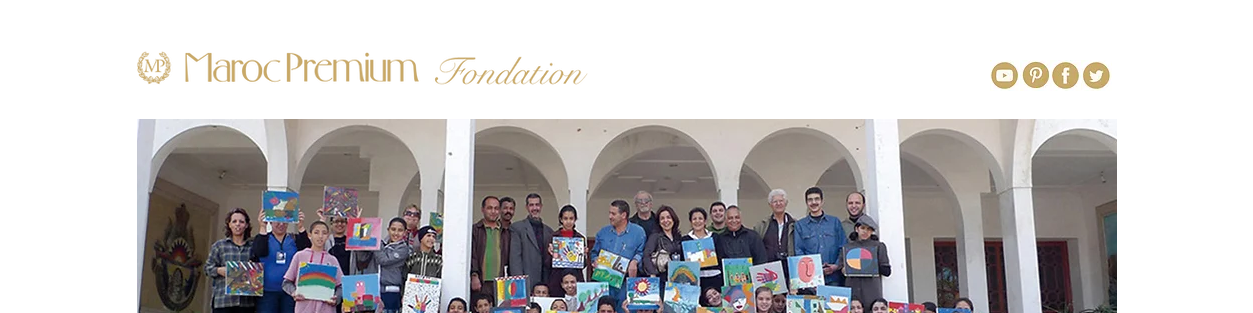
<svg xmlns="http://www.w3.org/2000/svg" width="1253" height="313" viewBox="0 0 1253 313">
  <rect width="100%" height="100%" fill="#ffffff"/>
  <image x="137" y="51" width="451" height="34" href="img1.png"/>
  <image x="990" y="60" width="29" height="31" href="img2.png"/>
  <image x="1020" y="60" width="30" height="31" href="img3.png"/>
  <image x="1050" y="60" width="31" height="31" href="img4.png"/>
  <image x="1081" y="60" width="31" height="31" href="img5.png"/>
  <image x="137" y="119" width="980" height="194" href="img6.png"/>
</svg>
